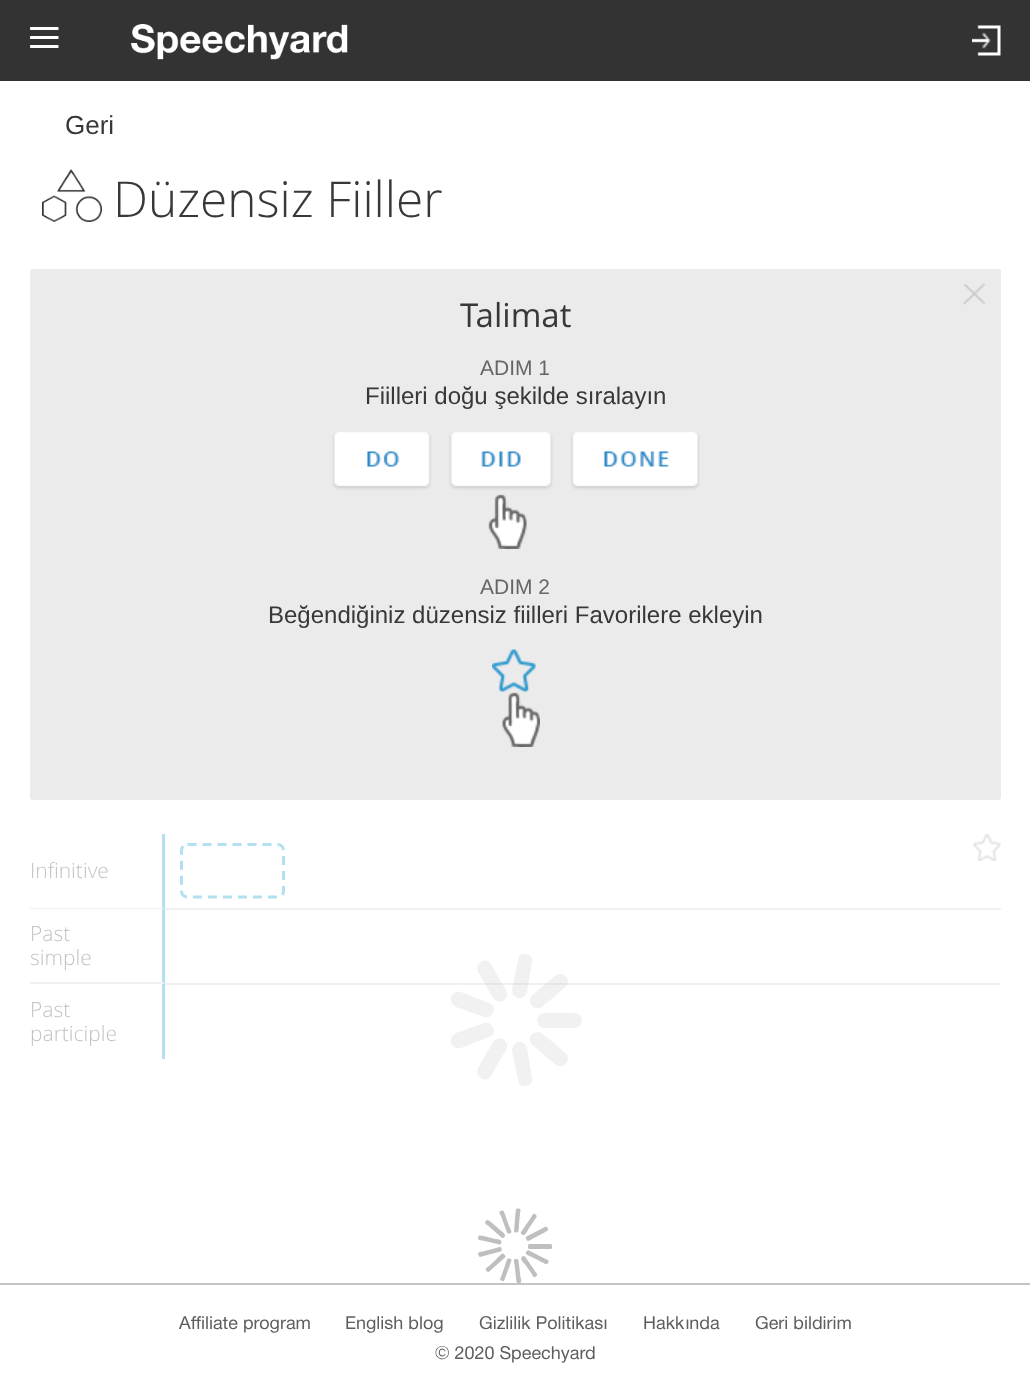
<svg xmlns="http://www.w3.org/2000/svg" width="1030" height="1385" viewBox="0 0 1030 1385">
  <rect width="100%" height="100%" fill="#ffffff"/>
  <rect x="0" y="0" width="1030" height="81" fill="#333333"/>
  <image x="30" y="27" width="29" height="21" href="img1.png"/>
  <image x="131" y="24" width="217" height="36" href="img2.png"/>
  <image x="972" y="25" width="29" height="31" href="img3.png"/>
  <text x="65" y="134" font-family="Liberation Sans" font-size="26" fill="#383838">Geri</text>
  <image x="42" y="169" width="60" height="53" href="img4.png"/>
  <text x="113" y="217" font-family="Open Sans" font-size="49.5" font-weight="300" fill="#383838">Düzensiz Fiiller</text>
  <rect x="30" y="269" width="971" height="531" rx="3" fill="#ebebeb"/>
  <image x="963" y="283" width="23" height="22" href="img5.png"/>
  <text x="460" y="327" font-family="Open Sans" font-size="33" fill="#383838">Talimat</text>
  <text x="480" y="375" font-family="Liberation Sans" font-size="21" fill="#666666">ADIM 1</text>
  <text x="365" y="404" font-family="Liberation Sans" font-size="24" fill="#383838">Fiilleri doğu şekilde sıralayın</text>
  <image x="332" y="432" width="368" height="117" href="img6.png"/>
  <text x="480" y="594" font-family="Liberation Sans" font-size="21" fill="#666666">ADIM 2</text>
  <text x="268" y="623" font-family="Liberation Sans" font-size="24" fill="#383838">Beğendiğiniz düzensiz fiilleri Favorilere ekleyin</text>
  <image x="492" y="649" width="48" height="98" href="img7.png"/>
  <image x="973" y="834" width="28" height="27" href="img8.png"/>
  <path d="M165 834V909L162 908V834Z" fill="#b3e0f0"/>
  <path d="M165 909H30V908H162Z" fill="#f0f0f0"/>
  <text x="30" y="878" font-family="'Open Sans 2'" font-size="21" font-weight="300" fill="#c2c2c2">Infinitive</text>
  <rect x="165" y="908" width="836" height="2" fill="#f0f0f0"/>
  <path d="M187.5 844.5H277.5C281 844.5 283.5 847 283.5 850.5V891C283.5 894.5 281 897 277.5 897H187.5C184 897 181.5 894.5 181.5 891V850.5C181.5 847 184 844.5 187.5 844.5Z" fill="none" stroke="#b3e0f0" stroke-width="3" stroke-dasharray="9 6"/>
  <path d="M165 909V984L162 982V909Z" fill="#b3e0f0"/>
  <path d="M165 984H30V982H162Z" fill="#f0f0f0"/>
  <text x="30" y="941" font-family="'Open Sans 2'" font-size="21" font-weight="300" fill="#c2c2c2">Past</text>
  <text x="30" y="965" font-family="'Open Sans 2'" font-size="21" font-weight="300" fill="#c2c2c2">simple</text>
  <rect x="165" y="983" width="836" height="2" fill="#f0f0f0"/>
  <rect x="162" y="984" width="3" height="75" fill="#b3e0f0"/>
  <text x="30" y="1017" font-family="'Open Sans 2'" font-size="21" font-weight="300" fill="#c2c2c2">Past</text>
  <text x="30" y="1041" font-family="'Open Sans 2'" font-size="21" font-weight="300" fill="#c2c2c2">participle</text>
  <path d="M542.5 1033.5L565.5 1053C568.5 1055.5 569 1060 566 1063.5C563.5 1066.5 559 1067 555.5 1064.5L532.5 1045C529.5 1042.5 529 1037.5 531.5 1034.5C534.5 1031.5 539 1031 542.5 1033.5Z" fill="#f1f1f1"/>
  <path d="M527 1048L532 1078C533 1082 530 1086 526 1086C522 1087 518 1084 518 1080L512 1051C512 1047 514 1043 518 1042C522 1041 526 1044 527 1048ZM506 1050L491 1076C489 1079 484 1081 481 1078C477 1076 476 1072 478 1068L493 1042C495 1039 500 1037 503 1039C507 1042 508 1046 506 1050Z" fill="#f1f1f1"/>
  <path d="M489 1037L461 1048C457 1049 452 1047 451 1043C450 1039 452 1035 456 1033L484 1023C488 1022 492 1024 493 1028C495 1032 493 1036 489 1037ZM484 1017L456 1007C452 1005 450 1001 451 997C452 993 457 991 461 992L489 1003C493 1004 495 1008 493 1012C492 1016 488 1018 484 1017Z" fill="#f1f1f1"/>
  <path d="M493 998L478 972C476 968 477 964 481 962C484 959 489 961 491 964L506 990C508 994 507 998 503 1001C500 1003 495 1001 493 998ZM512 989L518 960C518 956 522 953 526 954C530 954 533 958 532 962L527 992C526 996 522 999 518 998C514 997 512 993 512 989Z" fill="#c7c7c7" fill-opacity="0.25"/>
  <path d="M532.5 995L555.5 975.5C559 973 563.5 973.5 566 976.5C569 980 568.5 984.5 565.5 987L542.5 1006.5C539 1009 534.5 1008.5 531.5 1005.5C529 1002.5 529.5 997.5 532.5 995Z" fill="#c7c7c7" fill-opacity="0.25"/>
  <rect x="537" y="1013" width="45" height="15" rx="7.5" fill="#f1f1f1"/>
  <path d="M529 1250.5L544.5 1258.5C545.5 1259 549.5 1260 548.5 1262C546.5 1265.5 546 1264 542.5 1262.5L533 1257.5C532 1257 527 1255 526 1254C525.5 1252.5 527 1249.5 529 1250.5Z" fill="#bfbfbf"/>
  <path d="M525 1256.5L535 1271C535.5 1272 538.5 1274.5 536.5 1276C533.5 1278.5 533.5 1277 531.5 1273.5L525.5 1265C524.5 1264 521 1260 521 1258.5C521 1257 524 1255 525 1256.5Z" fill="#000000" fill-opacity="0.25"/>
  <rect x="0" y="1283" width="1030" height="2" fill="#c4c4c4"/>
  <path d="M518.5 1260.5L520.5 1277.5C521 1278.5 522 1282.5 520 1283C516 1283.5 516.5 1282 516 1278.5L515 1268C515 1266.5 513.5 1261.5 514 1260C515 1258.5 518.5 1258.5 518.5 1260.5ZM511.5 1260.5L505.5 1277C505 1278 504.5 1282 502.5 1281C499 1280 500 1279 501.5 1275.5L505 1265.5C505.5 1264.5 506.5 1259 508 1258.5C509 1257.5 512 1259 511.5 1260.5Z" fill="#000000" fill-opacity="0.25"/>
  <path d="M505 1257.5L492 1269C491 1270 488.5 1273 487 1271.5C484.5 1268.5 486 1268.5 489 1266L496.5 1259C497.5 1258 501 1254 502.5 1253.5C504 1253.5 506.5 1256 505 1257.5Z" fill="#bfbfbf"/>
  <path d="M500.5 1251.5L483.5 1256C482.5 1256 479 1258 478.5 1255.5C477.5 1252 478.5 1252.5 482.5 1251.5L492.5 1249C494 1248.5 499 1247 500.5 1247C502 1248 502.5 1251 500.5 1251.5ZM499.5 1244.5L482.5 1240.5C481.5 1240.5 477.5 1240.5 478 1238C478.5 1234.5 479.5 1235.5 483.5 1236L493.5 1238.5C495 1239 500 1239.5 501 1240.5C502 1242 501 1245 499.5 1244.5Z" fill="#bfbfbf"/>
  <path d="M501.5 1237.5L488.5 1226C488 1225.5 484 1223.5 485.5 1221.5C488 1219 488.5 1220 491.5 1222.5L499.5 1229.5C500.5 1230.5 505 1233.5 505 1235C505.5 1236.5 503 1239 501.5 1237.5Z" fill="#bfbfbf"/>
  <path d="M507 1232.5L501 1216C500.5 1215.5 498 1212 500.5 1211C504 1209.5 503.5 1211 505 1214.5L508.5 1224.5C509 1226 511.5 1230.5 511.5 1232C511 1233.5 507.5 1234.5 507 1232.5ZM514 1230.5L515.5 1213C516 1212 515.5 1208 517.5 1208.5C521.5 1208.5 520.5 1210 520 1213.5L519 1224C519 1225.5 519 1231 518 1232C517 1233 513.5 1232.5 514 1230.5Z" fill="#000000" fill-opacity="0.25"/>
  <path d="M521 1232L531 1217.5C531.5 1216.5 533 1213 535 1214C538 1216.5 536.5 1217 534.5 1220L528.5 1229C528 1230 525.5 1234.5 524 1235C522.5 1235.5 520 1233.5 521 1232Z" fill="#000000" fill-opacity="0.25"/>
  <path d="M526.5 1236.5L542 1228.5C543 1228 546 1225.5 547.5 1227.5C549 1231 547.5 1230.5 544.5 1232.5L535 1237.5C533.5 1238 529.5 1241 528 1241C526.5 1240.5 525 1237.5 526.5 1236.5Z" fill="#bfbfbf"/>
  <rect x="528" y="1244" width="24" height="5" rx="1.5" fill="#bfbfbf"/>
  <text x="179" y="1329" font-family="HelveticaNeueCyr" font-size="18" fill="#5e5e5e">Affiliate program</text>
  <text x="345" y="1329" font-family="HelveticaNeueCyr" font-size="18" fill="#5e5e5e">English blog</text>
  <text x="479" y="1329" font-family="HelveticaNeueCyr" font-size="18" fill="#5e5e5e">Gizlilik Politikas</text>
  <text x="603" y="1329" font-family="Liberation Sans" font-size="18" fill="#5e5e5e">ı</text>
  <text x="643" y="1329" font-family="HelveticaNeueCyr" font-size="18" fill="#5e5e5e">Hakk nda</text>
  <text x="685" y="1329" font-family="Liberation Sans" font-size="18" fill="#5e5e5e">ı</text>
  <text x="755" y="1329" font-family="HelveticaNeueCyr" font-size="18" fill="#5e5e5e">Geri bildirim</text>
  <text x="435" y="1359" font-family="HelveticaNeueCyr" font-size="18" fill="#5e5e5e">© 2020 Speechyard</text>
</svg>
